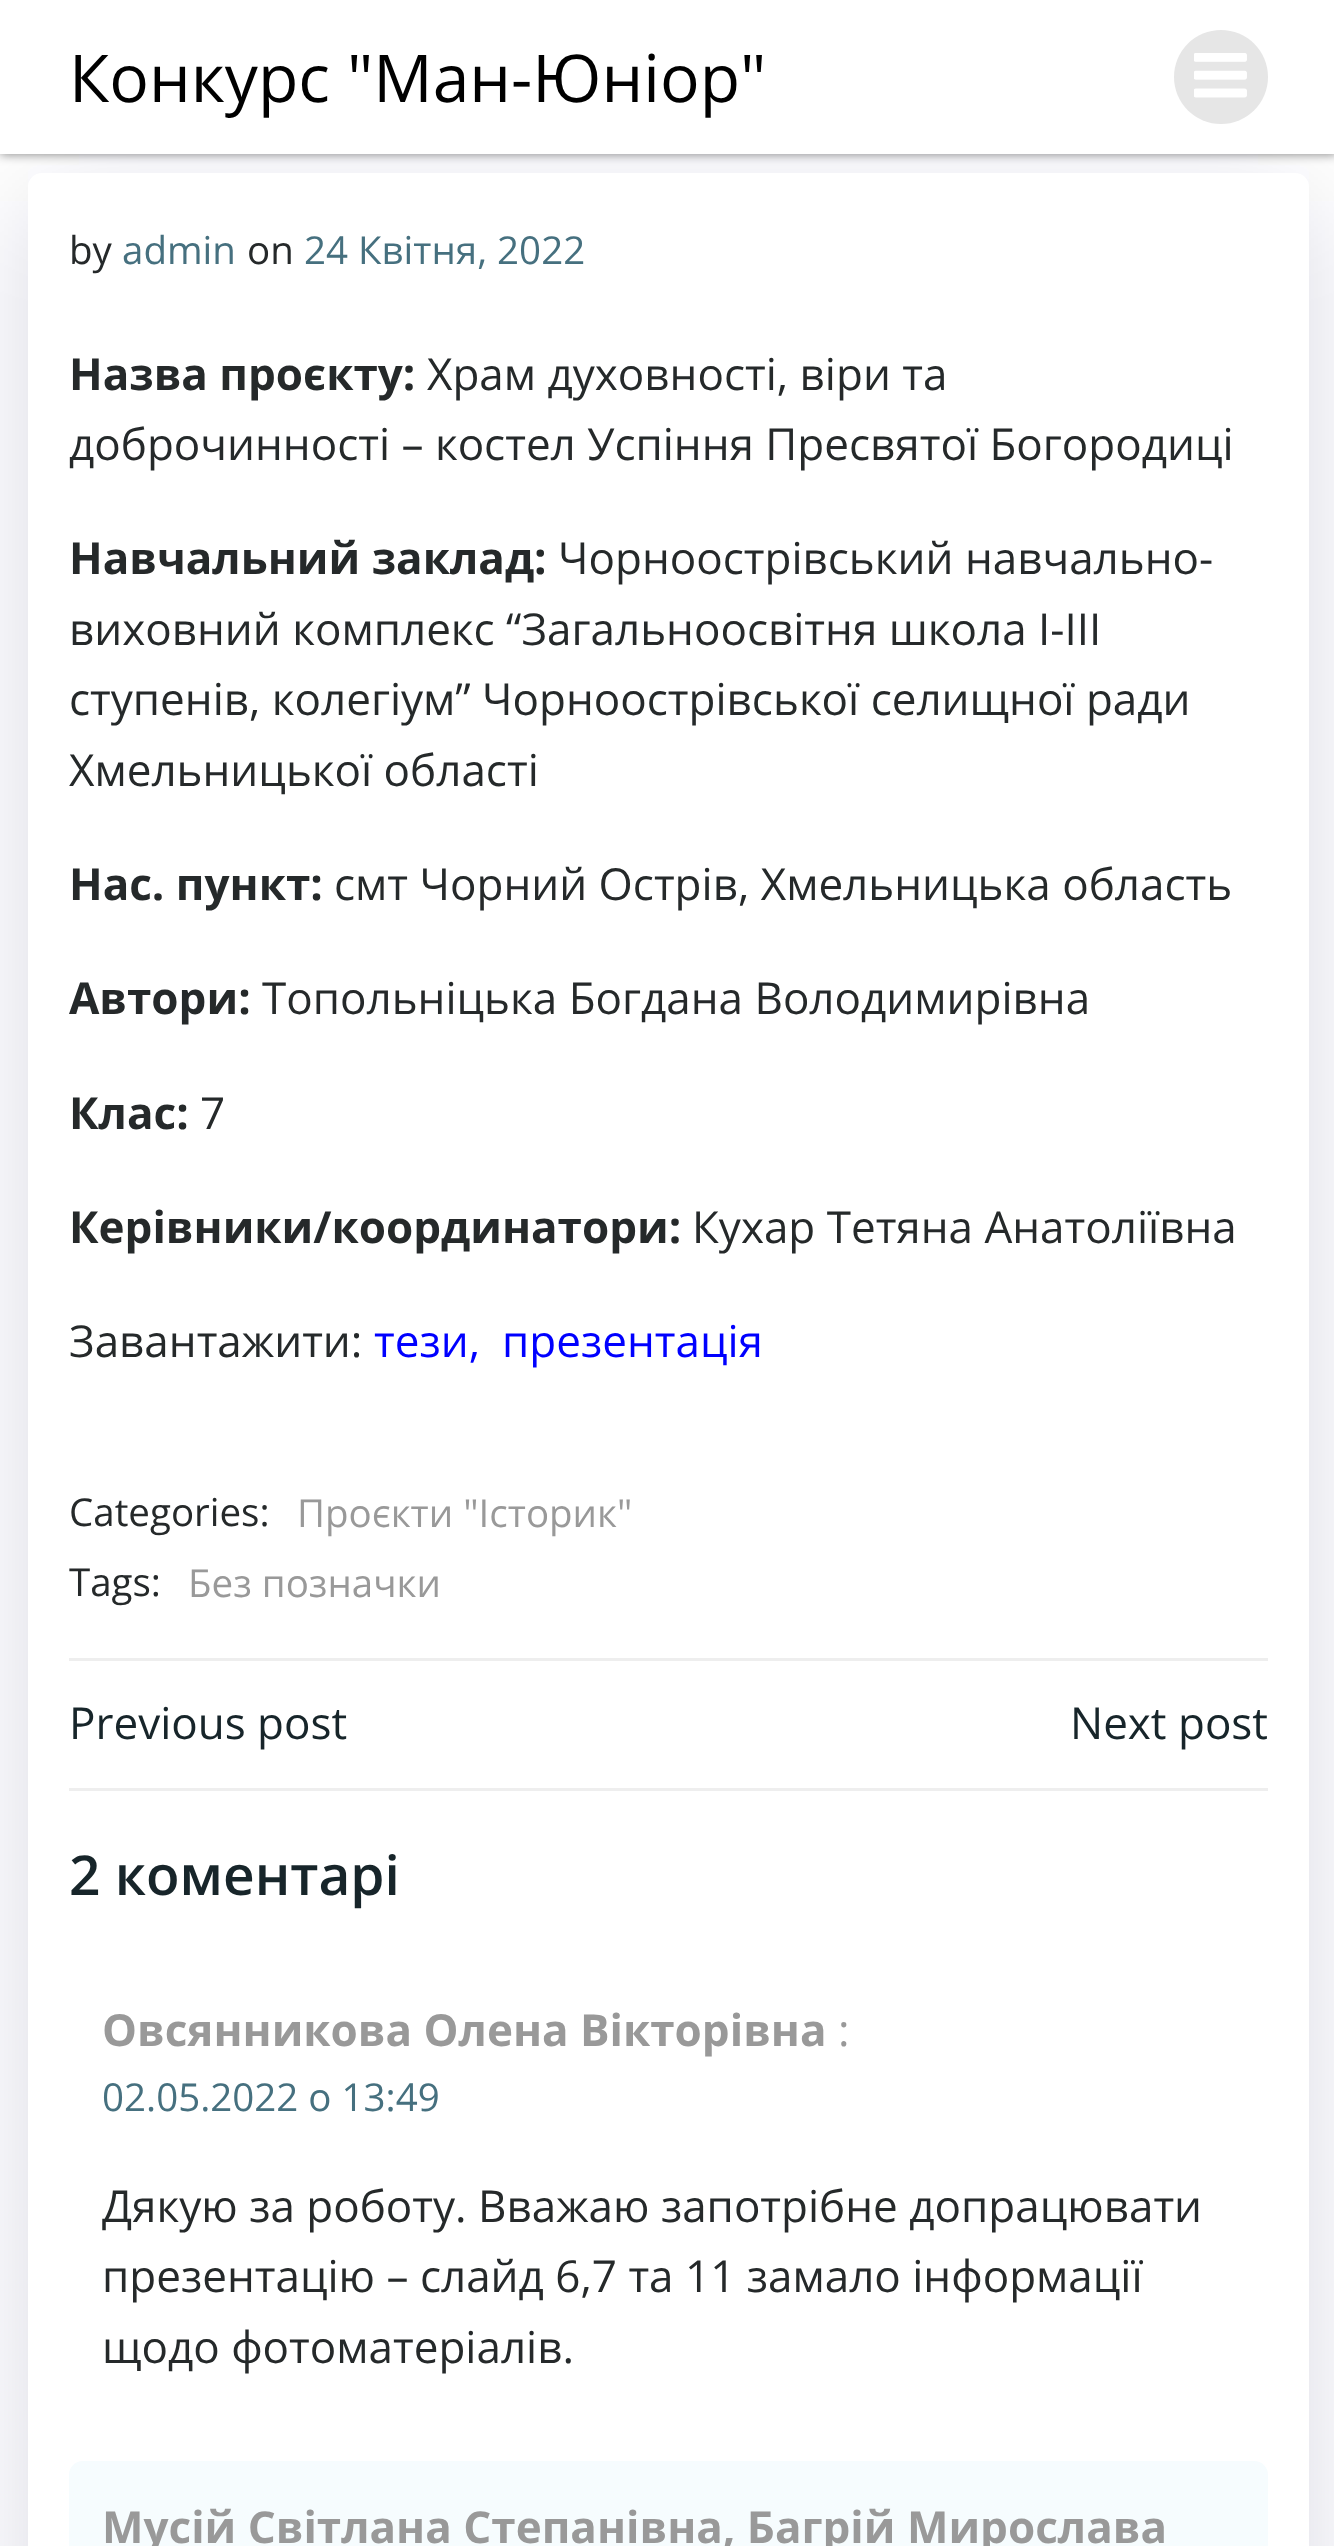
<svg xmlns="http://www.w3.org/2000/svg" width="1334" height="2546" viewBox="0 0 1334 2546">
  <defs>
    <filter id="blur1" x="-50%" y="-200%" width="200%" height="500%"><feGaussianBlur stdDeviation="5.5"/></filter>
    <filter id="blur2" x="-50%" y="-200%" width="200%" height="500%"><feGaussianBlur stdDeviation="55"/></filter>
  </defs>
  <rect width="100%" height="100%" fill="#ffffff"/>
  <rect x="0" y="0" width="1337" height="154" fill="#000000" fill-opacity="0.5" filter="url(#blur1)"/>
  <rect x="28" y="201" width="1281" height="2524" rx="14" fill="#01334a" fill-opacity="0.15" filter="url(#blur2)"/>
  <rect x="0" y="0" width="1334" height="154" fill="#ffffff"/>
  <text x="69" y="102" font-family="Open Sans" font-size="66" fill="#000000">Конкурс "Ман-Юніор"</text>
  <circle cx="1221" cy="77" r="47" fill="#e6e6e6"/>
  <image x="1194" y="53" width="53" height="45" href="img1.png"/>
  <rect x="28" y="173" width="1281" height="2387" rx="14" fill="#ffffff"/>
  <text x="69" y="264" font-family="Open Sans" font-size="38.5" fill="#25292a">by</text>
  <text x="122" y="264" font-family="Open Sans" font-size="38.5" fill="#46707f">admin</text>
  <text x="247" y="264" font-family="Open Sans" font-size="38.5" fill="#25292a">on</text>
  <text x="304" y="264" font-family="Open Sans" font-size="38.5" fill="#46707f">24 Квітня, 2022</text>
  <text x="69" y="390" font-family="Open Sans" font-size="44" font-weight="bold" fill="#25292a">Назва проєкту:</text>
  <text x="427" y="390" font-family="Open Sans" font-size="44" fill="#25292a">Храм духовності, віри та</text>
  <text x="69" y="460" font-family="Open Sans" font-size="44" fill="#25292a">доброчинності – костел Успіння Пресвятої Богородиці</text>
  <text x="69" y="574" font-family="Open Sans" font-size="44" font-weight="bold" fill="#25292a">Навчальний заклад:</text>
  <text x="558" y="574" font-family="Open Sans" font-size="44" fill="#25292a">Чорноострівський навчально-</text>
  <text x="69" y="645" font-family="Open Sans" font-size="44" fill="#25292a">виховний комплекс “Загальноосвітня школа І-ІІІ</text>
  <text x="69" y="715" font-family="Open Sans" font-size="44" fill="#25292a">ступенів, колегіум” Чорноострівської селищної ради</text>
  <text x="69" y="786" font-family="Open Sans" font-size="44" fill="#25292a">Хмельницької області</text>
  <text x="69" y="900" font-family="Open Sans" font-size="44" font-weight="bold" fill="#25292a">Нас. пункт:</text>
  <text x="334" y="900" font-family="Open Sans" font-size="44" fill="#25292a">смт Чорний Острів, Хмельницька область</text>
  <text x="69" y="1014" font-family="Open Sans" font-size="44" font-weight="bold" fill="#25292a">Автори:</text>
  <text x="262" y="1014" font-family="Open Sans" font-size="44" fill="#25292a">Топольніцька Богдана Володимирівна</text>
  <text x="69" y="1129" font-family="Open Sans" font-size="44" font-weight="bold" fill="#25292a">Клас:</text>
  <text x="200" y="1129" font-family="Open Sans" font-size="44" fill="#25292a">7</text>
  <text x="69" y="1243" font-family="Open Sans" font-size="44" font-weight="bold" fill="#25292a">Керівники/координатори:</text>
  <text x="692" y="1243" font-family="Open Sans" font-size="44" fill="#25292a">Кухар Тетяна Анатоліївна</text>
  <text x="69" y="1357" font-family="Open Sans" font-size="44" fill="#25292a">Завантажити:</text>
  <text x="374" y="1357" font-family="Open Sans" font-size="44" fill="#0000ff">тези,</text>
  <text x="502" y="1357" font-family="Open Sans" font-size="44" fill="#0000ff">презентація</text>
  <text x="69" y="1526" font-family="Open Sans" font-size="38.5" fill="#25292a">Categories:</text>
  <text x="297" y="1527" font-family="Open Sans" font-size="38.5" fill="#999999">Проєкти "Історик"</text>
  <text x="69" y="1596" font-family="Open Sans" font-size="38.5" fill="#25292a">Tags:</text>
  <text x="188" y="1597" font-family="Open Sans" font-size="38.5" fill="#999999">Без позначки</text>
  <rect x="69" y="1658" width="1199" height="3" fill="#eeeeee"/>
  <text x="69" y="1739" font-family="Open Sans" font-size="44" fill="#17252a">Previous post</text>
  <text x="1070" y="1739" font-family="Open Sans" font-size="44" fill="#17252a">Next post</text>
  <rect x="69" y="1788" width="1199" height="3" fill="#eeeeee"/>
  <text x="69" y="1895" font-family="Open Sans" font-size="55" font-weight="600" fill="#17252a">2 коментарі</text>
  <text x="102" y="2046" font-family="Open Sans" font-size="44" font-weight="bold" fill="#999999">Овсянникова Олена Вікторівна</text>
  <text x="838" y="2046" font-family="Open Sans" font-size="44" fill="#999999">:</text>
  <text x="102" y="2111" font-family="Open Sans" font-size="38.5" fill="#46707f">02.05.2022 о 13:49</text>
  <text x="102" y="2222" font-family="Open Sans" font-size="44" fill="#25292a">Дякую за роботу. Вважаю запотрібне допрацювати</text>
  <text x="102" y="2292" font-family="Open Sans" font-size="44" fill="#25292a">презентацію – слайд 6,7 та 11 замало інформації</text>
  <text x="102" y="2363" font-family="Open Sans" font-size="44" fill="#25292a">щодо фотоматеріалів.</text>
  <rect x="69" y="2461" width="1199" height="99" rx="14" fill="#f6fcfe"/>
  <text x="102" y="2543" font-family="Open Sans" font-size="44" font-weight="bold" fill="#999999">Мусій Світлана Степанівна, Багрій Мирослава</text>
</svg>
